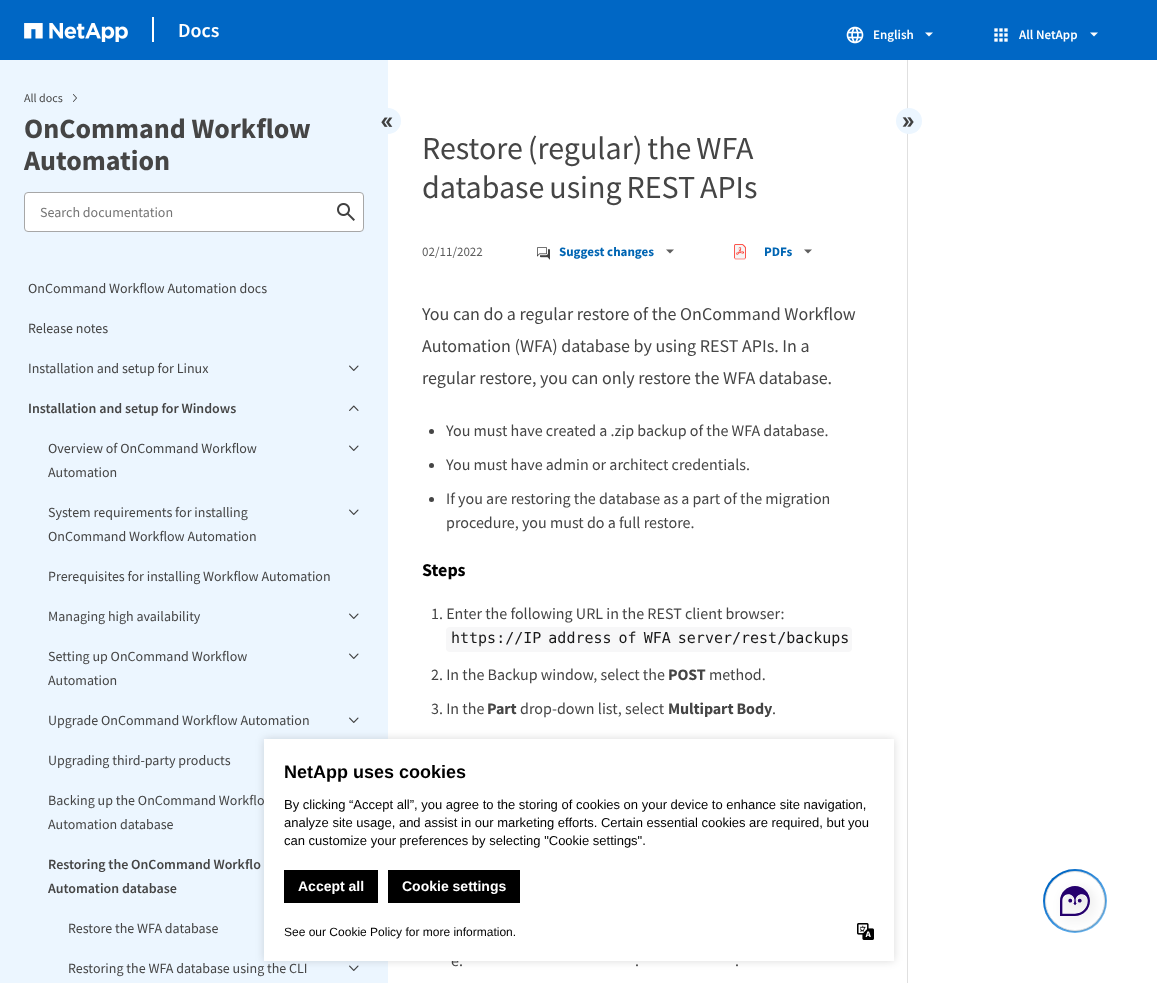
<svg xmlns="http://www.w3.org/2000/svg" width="1157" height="983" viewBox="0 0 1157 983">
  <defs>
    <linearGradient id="g1" gradientUnits="userSpaceOnUse" x1="1043" y1="869" x2="1107" y2="933"><stop offset="0.18" stop-color="#0067c5"/><stop offset="0.89" stop-color="#7ac3fa"/></linearGradient>
    <filter id="blur1" x="-50%" y="-200%" width="200%" height="500%"><feGaussianBlur stdDeviation="4"/></filter>
  </defs>
  <rect width="100%" height="100%" fill="#ffffff"/>
  <rect x="0" y="0" width="1157" height="60" fill="#0067c5"/>
  <image x="24" y="23" width="104" height="19" href="img1.png"/>
  <rect x="152" y="17" width="2" height="25" fill="#ffffff"/>
  <text x="178" y="37" font-family="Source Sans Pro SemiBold" font-size="20" font-weight="600" fill="#ffffff">Docs</text>
  <image x="846" y="26" width="18" height="18" href="img2.png"/>
  <text x="873" y="39" font-family="Source Sans Pro SemiBold" font-size="13" font-weight="600" fill="#ffffff">English</text>
  <path d="M929 36.5L925 32.5H933Z" fill="#fdfdfd"/>
  <image x="994" y="28" width="14" height="14" href="img3.png"/>
  <text x="1019" y="39" font-family="Source Sans Pro SemiBold" font-size="13" font-weight="600" fill="#ffffff">All NetApp</text>
  <path d="M1094 36.5L1090 32.5H1098Z" fill="#fdfdfd"/>
  <rect x="0" y="60" width="388" height="923" fill="#ecf6ff"/>
  <text x="24" y="102" font-family="Source Sans Pro" font-size="12" fill="#454545">All docs</text>
  <image x="73" y="94" width="4" height="8" href="img4.png"/>
  <text x="24" y="138" font-family="Source Sans Pro" font-size="28" font-weight="bold" fill="#454545">OnCommand Workflow</text>
  <text x="24" y="170" font-family="Source Sans Pro" font-size="28" font-weight="bold" fill="#454545">Automation</text>
  <circle cx="388" cy="121" r="13" fill="#ecf6ff"/>
  <image x="381" y="117" width="12" height="10" href="img5.png"/>
  <rect x="24.5" y="192.5" width="339" height="39" rx="3.5" fill="#ffffff" stroke="#a7a7a7"/>
  <text x="40" y="217" font-family="Source Sans Pro" font-size="14" fill="#757575">Search documentation</text>
  <image x="337" y="203" width="18" height="18" href="img6.png"/>
  <text x="28" y="293" font-family="Source Sans Pro" font-size="14" fill="#454545">OnCommand Workflow Automation docs</text>
  <text x="28" y="333" font-family="Source Sans Pro" font-size="14" fill="#454545">Release notes</text>
  <text x="28" y="373" font-family="Source Sans Pro" font-size="14" fill="#454545">Installation and setup for Linux</text>
  <image x="349" y="365" width="10" height="6" href="img7.png"/>
  <text x="28" y="413" font-family="Source Sans Pro SemiBold" font-size="14" font-weight="600" fill="#454545">Installation and setup for Windows</text>
  <image x="349" y="405" width="10" height="6" href="img8.png"/>
  <text x="48" y="453" font-family="Source Sans Pro" font-size="14" fill="#454545">Overview of OnCommand Workflow</text>
  <image x="349" y="445" width="10" height="6" href="img7.png"/>
  <text x="48" y="477" font-family="Source Sans Pro" font-size="14" fill="#454545">Automation</text>
  <text x="48" y="517" font-family="Source Sans Pro" font-size="14" fill="#454545">System requirements for installing</text>
  <image x="349" y="509" width="10" height="6" href="img7.png"/>
  <text x="48" y="541" font-family="Source Sans Pro" font-size="14" fill="#454545">OnCommand Workflow Automation</text>
  <text x="48" y="581" font-family="Source Sans Pro" font-size="14" fill="#454545">Prerequisites for installing Workflow Automation</text>
  <text x="48" y="621" font-family="Source Sans Pro" font-size="14" fill="#454545">Managing high availability</text>
  <image x="349" y="613" width="10" height="6" href="img7.png"/>
  <text x="48" y="661" font-family="Source Sans Pro" font-size="14" fill="#454545">Setting up OnCommand Workflow</text>
  <image x="349" y="653" width="10" height="6" href="img7.png"/>
  <text x="48" y="685" font-family="Source Sans Pro" font-size="14" fill="#454545">Automation</text>
  <text x="48" y="725" font-family="Source Sans Pro" font-size="14" fill="#454545">Upgrade OnCommand Workflow Automation</text>
  <image x="349" y="717" width="10" height="6" href="img7.png"/>
  <text x="48" y="765" font-family="Source Sans Pro" font-size="14" fill="#454545">Upgrading third-party products</text>
  <text x="48" y="805" font-family="Source Sans Pro" font-size="14" fill="#454545">Backing up the OnCommand Workflo</text>
  <text x="48" y="829" font-family="Source Sans Pro" font-size="14" fill="#454545">Automation database</text>
  <text x="48" y="869" font-family="Source Sans Pro SemiBold" font-size="14" font-weight="600" fill="#454545">Restoring the OnCommand Workflo</text>
  <text x="48" y="893" font-family="Source Sans Pro SemiBold" font-size="14" font-weight="600" fill="#454545">Automation database</text>
  <text x="68" y="933" font-family="Source Sans Pro" font-size="14" fill="#454545">Restore the WFA database</text>
  <text x="68" y="973" font-family="Source Sans Pro" font-size="14" fill="#454545">Restoring the WFA database using the CLI</text>
  <image x="349" y="965" width="10" height="6" href="img7.png"/>
  <text x="422" y="159" word-spacing="-1.5" font-family="Source Sans Pro" font-size="32" fill="#454545">Restore (regular) the WFA</text>
  <text x="422" y="198" word-spacing="-1.5" font-family="Source Sans Pro" font-size="32" fill="#454545">database using REST APIs</text>
  <text x="422" y="256" font-family="Source Sans Pro" font-size="13" fill="#5e5e5e">02/11/2022</text>
  <image x="537" y="247" width="13" height="13" href="img9.png"/>
  <text x="559" y="256" font-family="Source Sans Pro" font-size="13" font-weight="bold" fill="#0065b3">Suggest changes</text>
  <path d="M670 253.5L666 249.5H674Z" fill="#5e5e5e"/>
  <image x="734" y="244" width="12" height="16" href="img10.png"/>
  <text x="764" y="256" font-family="Source Sans Pro" font-size="13" font-weight="bold" fill="#0065b3">PDFs</text>
  <path d="M808 253.5L804 249.5H812Z" fill="#5e5e5e"/>
  <text x="422" y="320" font-family="Source Sans Pro" font-size="18" fill="#454545">You can do a regular restore of the OnCommand Workflow</text>
  <text x="422" y="352" font-family="Source Sans Pro" font-size="18" fill="#454545">Automation (WFA) database by using REST APIs. In a</text>
  <text x="422" y="384" font-family="Source Sans Pro" font-size="18" fill="#454545">regular restore, you can only restore the WFA database.</text>
  <circle cx="431.5" cy="431.5" r="2.5" fill="#454545"/>
  <text x="446" y="436" font-family="Source Sans Pro" font-size="16" fill="#454545">You must have created a .zip backup of the WFA database.</text>
  <circle cx="431.5" cy="465.5" r="2.5" fill="#454545"/>
  <text x="446" y="470" font-family="Source Sans Pro" font-size="16" fill="#454545">You must have admin or architect credentials.</text>
  <circle cx="431.5" cy="499.5" r="2.5" fill="#454545"/>
  <text x="446" y="504" font-family="Source Sans Pro" font-size="16" fill="#454545">If you are restoring the database as a part of the migration</text>
  <text x="446" y="528" font-family="Source Sans Pro" font-size="16" fill="#454545">procedure, you must do a full restore.</text>
  <text x="422" y="576" font-family="Source Sans Pro" font-size="18" font-weight="bold" fill="#000000">Steps</text>
  <text x="431" y="619" font-family="Source Sans Pro" font-size="16" fill="#454545">1. Enter the following URL in the REST client browser:</text>
  <rect x="446" y="627" width="406" height="25" rx="4" fill="#f7f7f8"/>
  <text x="451" y="643" word-spacing="-2" font-family="DejaVu Sans Mono" font-size="15" fill="#191919">https://IP address of WFA server/rest/backups</text>
  <text x="431" y="680" font-family="Source Sans Pro" font-size="16" fill="#454545">2. In the Backup window, select the</text>
  <text x="668" y="680" font-family="Source Sans Pro" font-size="16" font-weight="bold" letter-spacing="-0.1" fill="#454545">POST</text>
  <text x="709" y="680" font-family="Source Sans Pro" font-size="16" fill="#454545">method.</text>
  <text x="431" y="714" font-family="Source Sans Pro" font-size="16" fill="#454545">3. In the</text>
  <text x="487" y="714" font-family="Source Sans Pro" font-size="16" font-weight="bold" letter-spacing="-0.1" fill="#454545">Part</text>
  <text x="520" y="714" font-family="Source Sans Pro" font-size="16" fill="#454545">drop-down list, select</text>
  <text x="668" y="714" font-family="Source Sans Pro" font-size="16" font-weight="bold" letter-spacing="-0.1" fill="#454545">Multipart Body</text>
  <text x="772" y="714" font-family="Source Sans Pro" font-size="16" fill="#454545">.</text>
  <text x="451" y="966" font-family="Source Sans Pro" font-size="16" fill="#454545">e.</text>
  <text x="635" y="966" font-family="Source Sans Pro" font-size="16" fill="#454545">.</text>
  <text x="735" y="966" font-family="Source Sans Pro" font-size="16" fill="#454545">.</text>
  <rect x="907" y="60" width="1" height="923" fill="#e0e0e0"/>
  <circle cx="909" cy="121" r="13" fill="#ecf6ff"/>
  <image x="902" y="117" width="12" height="10" href="img11.png"/>
  <circle cx="1075" cy="901" r="32" fill="url(#g1)"/>
  <image x="1045" y="871" width="61" height="61" href="img12.png"/>
  <rect x="264" y="739" width="630" height="222" fill="#000000" fill-opacity="0.15" filter="url(#blur1)"/>
  <rect x="264" y="739" width="630" height="222" fill="#ffffff"/>
  <text x="284" y="778" font-family="Liberation Sans" font-size="18" font-weight="bold" fill="#000000">NetApp uses cookies</text>
  <text x="284" y="809" font-family="Liberation Sans" font-size="13" fill="#000000">By clicking “Accept all”, you agree to the storing of cookies on your device to enhance site navigation,</text>
  <text x="284" y="827" font-family="Liberation Sans" font-size="13" fill="#000000">analyze site usage, and assist in our marketing efforts. Certain essential cookies are required, but you</text>
  <text x="284" y="845" font-family="Liberation Sans" font-size="13" fill="#000000">can customize your preferences by selecting "Cookie settings".</text>
  <rect x="284" y="870" width="94" height="33" fill="#000000"/>
  <text x="298" y="891" font-family="Liberation Sans" font-size="14" font-weight="bold" fill="#ffffff">Accept all</text>
  <rect x="388" y="870" width="132" height="33" fill="#000000"/>
  <text x="402" y="891" font-family="Liberation Sans" font-size="14" font-weight="bold" fill="#ffffff">Cookie settings</text>
  <text x="284" y="936" font-family="Liberation Sans" font-size="12" fill="#000000">See our Cookie Policy for more information.</text>
  <image x="857" y="923" width="17" height="17" href="img13.png"/>
</svg>
